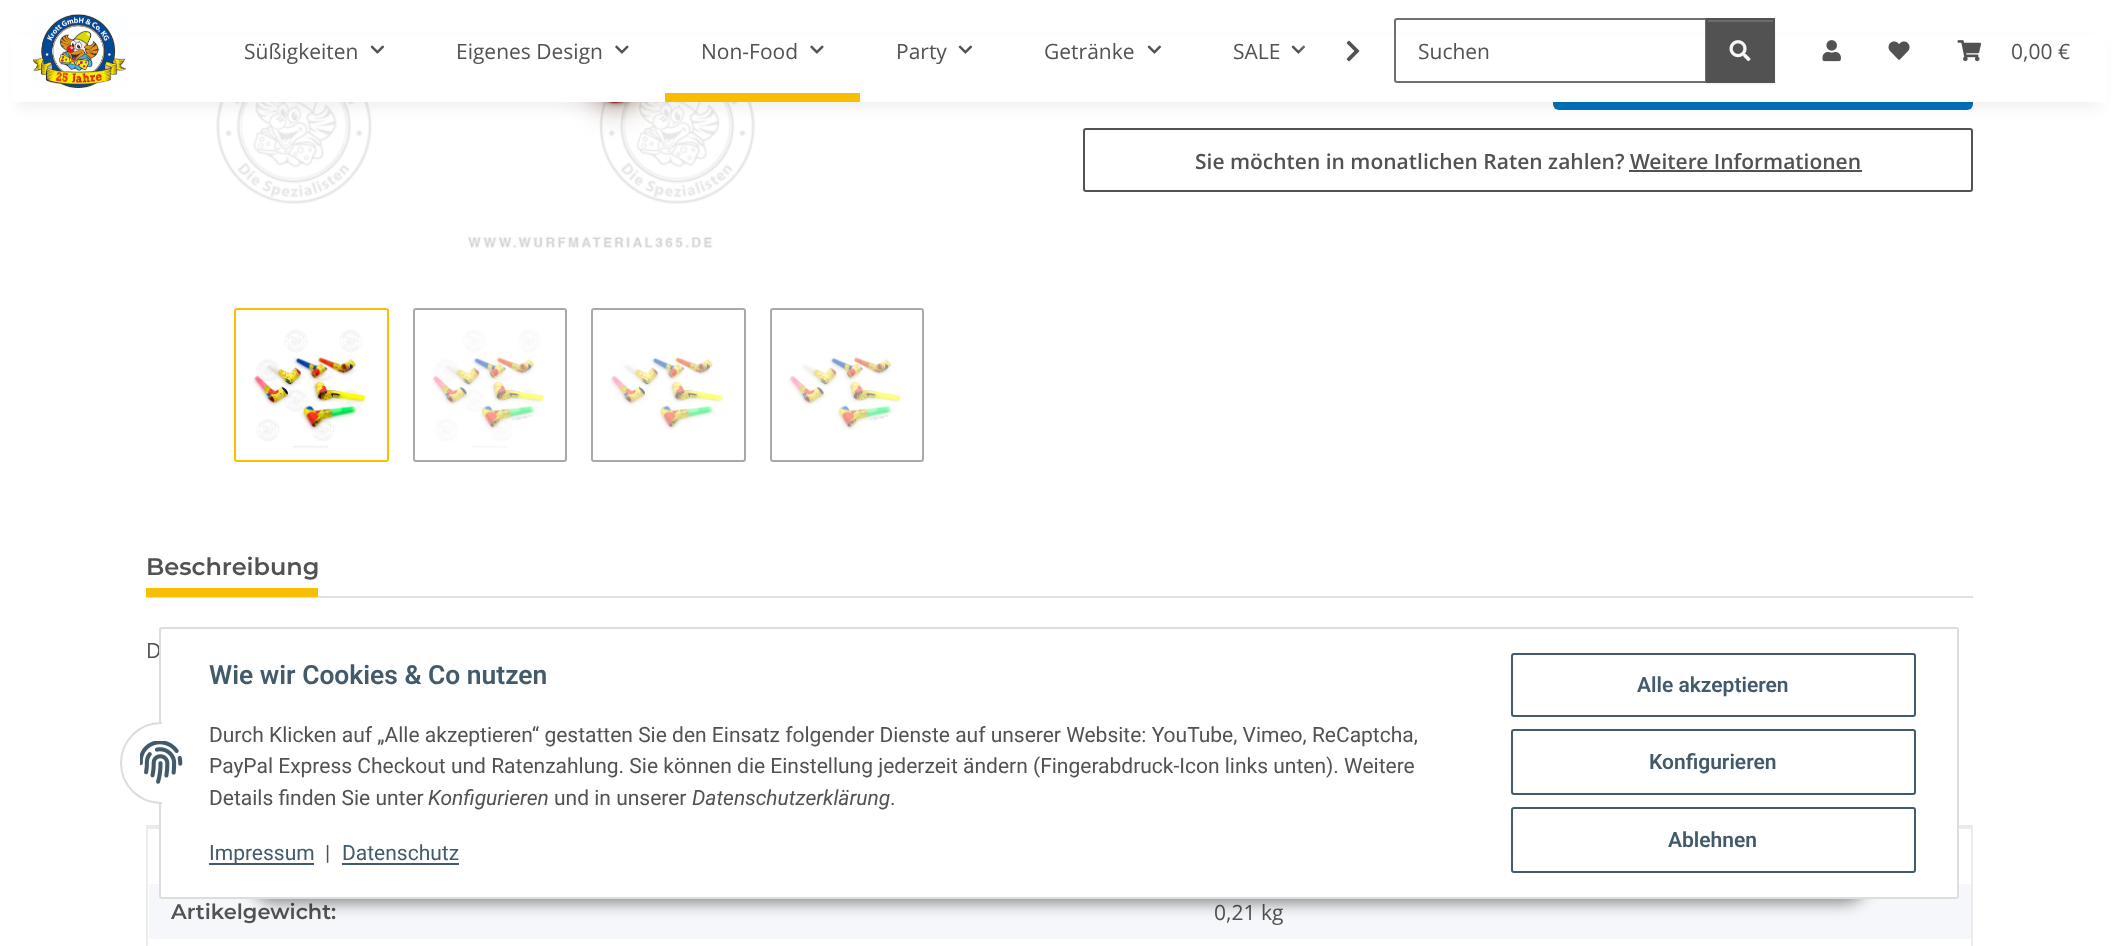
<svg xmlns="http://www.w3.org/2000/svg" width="2117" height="946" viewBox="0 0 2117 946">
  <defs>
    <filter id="blur1" x="-50%" y="-200%" width="200%" height="500%"><feGaussianBlur stdDeviation="7"/></filter>
    <linearGradient id="g1" gradientUnits="userSpaceOnUse" x1="1298" y1="51" x2="1370" y2="51"><stop offset="0" stop-color="#ffffff" stop-opacity="0.01"/><stop offset="0.7" stop-color="#ffffff"/></linearGradient>
    <filter id="blur2" x="-50%" y="-200%" width="200%" height="500%"><feGaussianBlur stdDeviation="1"/></filter>
    <filter id="blur3" x="-50%" y="-200%" width="200%" height="500%"><feGaussianBlur stdDeviation="7.5"/></filter>
  </defs>
  <rect width="100%" height="100%" fill="#ffffff"/>
  <image x="216" y="102" width="708" height="146" href="img9.png"/>
  <rect x="1553" y="50" width="420" height="60" rx="6" fill="#0070ba"/>
  <rect x="1084" y="129" width="888" height="62" rx="2" fill="none" stroke="#525252" stroke-width="2"/>
  <rect x="18" y="42" width="2082" height="66" fill="#000000" fill-opacity="0.06" filter="url(#blur1)"/>
  <rect x="11" y="35" width="2096" height="67" fill="#ffffff"/>
  <image x="33" y="14" width="93" height="74" href="img1.png"/>
  <text x="244" y="59" font-family="Open Sans" font-size="21" fill="#525252">Süßigkeiten</text>
  <image x="370" y="45" width="14" height="9" href="img2.png"/>
  <text x="456" y="59" font-family="Open Sans" font-size="21" fill="#525252">Eigenes Design</text>
  <image x="615" y="45" width="14" height="9" href="img3.png"/>
  <text x="701" y="59" font-family="Open Sans" font-size="21" fill="#525252">Non-Food</text>
  <image x="810" y="45" width="14" height="9" href="img3.png"/>
  <rect x="665" y="93" width="195" height="9" fill="#f8bf00"/>
  <text x="896" y="59" font-family="Open Sans" font-size="21" fill="#525252">Party</text>
  <image x="958" y="45" width="14" height="9" href="img2.png"/>
  <text x="1044" y="59" font-family="Open Sans" font-size="21" fill="#525252">Getränke</text>
  <image x="1147" y="45" width="14" height="9" href="img2.png"/>
  <text x="1233" y="59" font-family="Open Sans" font-size="21" fill="#525252">SALE</text>
  <image x="1291" y="45" width="14" height="9" href="img2.png"/>
  <rect x="1299" y="45" width="6" height="8" fill="url(#g1)"/>
  <image x="1346" y="40" width="14" height="22" href="img4.png"/>
  <path d="M1397 19H1706V82H1397C1396 82 1395 81 1395 80V21C1395 20 1396 19 1397 19Z" fill="none" stroke="#707070" stroke-width="2"/>
  <text x="1418" y="59" font-family="Open Sans" font-size="21" fill="#525252">Suchen</text>
  <rect x="1706" y="20" width="69" height="64" fill="#000000" fill-opacity="0.07" filter="url(#blur2)"/>
  <rect x="1708" y="22" width="65" height="59" fill="#525252"/>
  <rect x="1707" y="20" width="66" height="2" fill="#6c6c6c"/>
  <rect x="1707" y="19" width="67" height="63" fill="none" stroke="#525252" stroke-width="2"/>
  <image x="1729" y="40" width="22" height="22" href="img5.png"/>
  <image x="1822" y="40" width="19" height="22" href="img6.png"/>
  <image x="1888" y="41" width="22" height="19" href="img7.png"/>
  <image x="1957" y="40" width="25" height="22" href="img8.png"/>
  <text x="2011" y="59" font-family="Open Sans" font-size="21" fill="#525252">0,00 €</text>
  <rect x="235" y="309" width="153" height="152" rx="2" fill="none" stroke="#f8bf00" stroke-width="2"/>
  <image x="252" y="329" width="114" height="119" href="img10.png"/>
  <rect x="414" y="309" width="152" height="152" rx="2" fill="none" stroke="#a9a9a9" stroke-width="2"/>
  <image x="431" y="329" width="113" height="119" href="img11.png"/>
  <rect x="592" y="309" width="153" height="152" rx="2" fill="none" stroke="#a9a9a9" stroke-width="2"/>
  <image x="610" y="357" width="113" height="73" href="img12.png"/>
  <rect x="771" y="309" width="152" height="152" rx="2" fill="none" stroke="#a9a9a9" stroke-width="2"/>
  <image x="788" y="357" width="113" height="73" href="img13.png"/>
  <text x="1195" y="169" font-family="Open Sans" font-size="21" font-weight="600" fill="#525252">Sie möchten in monatlichen Raten zahlen? Weitere Informationen</text>
  <rect x="1629" y="170" width="233" height="2" fill="#525252"/>
  <rect x="146" y="596" width="1827" height="2" fill="#dee2e6"/>
  <text x="146" y="575" font-family="Montserrat" font-size="24" font-weight="600" fill="#525252">Beschreibung</text>
  <rect x="146" y="588" width="172" height="9" fill="#f8bf00"/>
  <text x="146" y="658" font-family="Open Sans" font-size="21" fill="#525252">D</text>
  <rect x="146" y="825" width="1827" height="4" fill="#ebebeb"/>
  <rect x="1971" y="884" width="2" height="62" fill="#ebebeb"/>
  <rect x="1971" y="827" width="2" height="58" fill="#ebebeb"/>
  <rect x="146" y="884" width="2" height="62" fill="#ebebeb"/>
  <rect x="146" y="827" width="2" height="58" fill="#ebebeb"/>
  <rect x="149" y="884" width="1822" height="55" fill="#f5f7fa"/>
  <text x="171" y="919" font-family="Montserrat" font-size="21" font-weight="600" fill="#525252">Artikelgewicht:</text>
  <text x="1214" y="920" font-family="Open Sans" font-size="21" fill="#525252">0,21 kg</text>
  <rect x="251" y="855" width="1617" height="48" rx="24" fill="#000000" fill-opacity="0.45" filter="url(#blur3)"/>
  <rect x="160" y="628" width="1798" height="270" rx="2" fill="#ffffff" stroke="#dddddd" stroke-width="2"/>
  <rect x="121" y="723" width="81" height="80" rx="40" fill="#ffffff" stroke="#dddddd" stroke-width="2"/>
  <rect x="162" y="722" width="41" height="82" fill="#ffffff"/>
  <image x="140" y="741" width="43" height="43" href="img14.png"/>
  <text x="209" y="684" font-family="Roboto" font-size="26.4" font-weight="600" fill="#435a6b">Wie wir Cookies &amp; Co nutzen</text>
  <text x="209" y="742" font-family="Roboto" font-size="21" fill="#525252">Durch Klicken auf „Alle akzeptieren“ gestatten Sie den Einsatz folgender Dienste auf unserer Website: YouTube, Vimeo, ReCaptcha,</text>
  <text x="209" y="773" font-family="Roboto" font-size="21" fill="#525252">PayPal Express Checkout und Ratenzahlung. Sie können die Einstellung jederzeit ändern (Fingerabdruck-Icon links unten). Weitere</text>
  <text x="209" y="805" font-family="Roboto" font-size="21" fill="#525252">Details finden Sie unter</text>
  <text x="428" y="805" font-family="Roboto" font-size="21" font-style="italic" fill="#525252">Konfigurieren</text>
  <text x="554" y="805" font-family="Roboto" font-size="21" fill="#525252">und in unserer</text>
  <text x="692" y="805" font-family="Roboto" font-size="21" font-style="italic" fill="#525252">Datenschutzerklärung</text>
  <text x="890" y="805" font-family="Roboto" font-size="21" fill="#525252">.</text>
  <rect x="209" y="863" width="105" height="2" fill="#435a6b"/>
  <text x="209" y="860" font-family="Roboto" font-size="21" fill="#435a6b">Impressum</text>
  <text x="325" y="860" font-family="Roboto" font-size="21" fill="#525252">|</text>
  <text x="342" y="860" font-family="Roboto" font-size="21" fill="#435a6b">Datenschutz</text>
  <rect x="342" y="863" width="117" height="2" fill="#435a6b"/>
  <rect x="1512" y="654" width="403" height="62" rx="2" fill="none" stroke="#435a6b" stroke-width="2"/>
  <text x="1637" y="692" font-family="Roboto" font-size="21" font-weight="600" fill="#435a6b">Alle akzeptieren</text>
  <rect x="1512" y="730" width="403" height="64" rx="2" fill="none" stroke="#435a6b" stroke-width="2"/>
  <text x="1649" y="769" font-family="Roboto" font-size="21" font-weight="600" fill="#435a6b">Konfigurieren</text>
  <rect x="1512" y="808" width="403" height="64" rx="2" fill="none" stroke="#435a6b" stroke-width="2"/>
  <text x="1668" y="847" font-family="Roboto" font-size="21" font-weight="600" fill="#435a6b">Ablehnen</text>
</svg>
